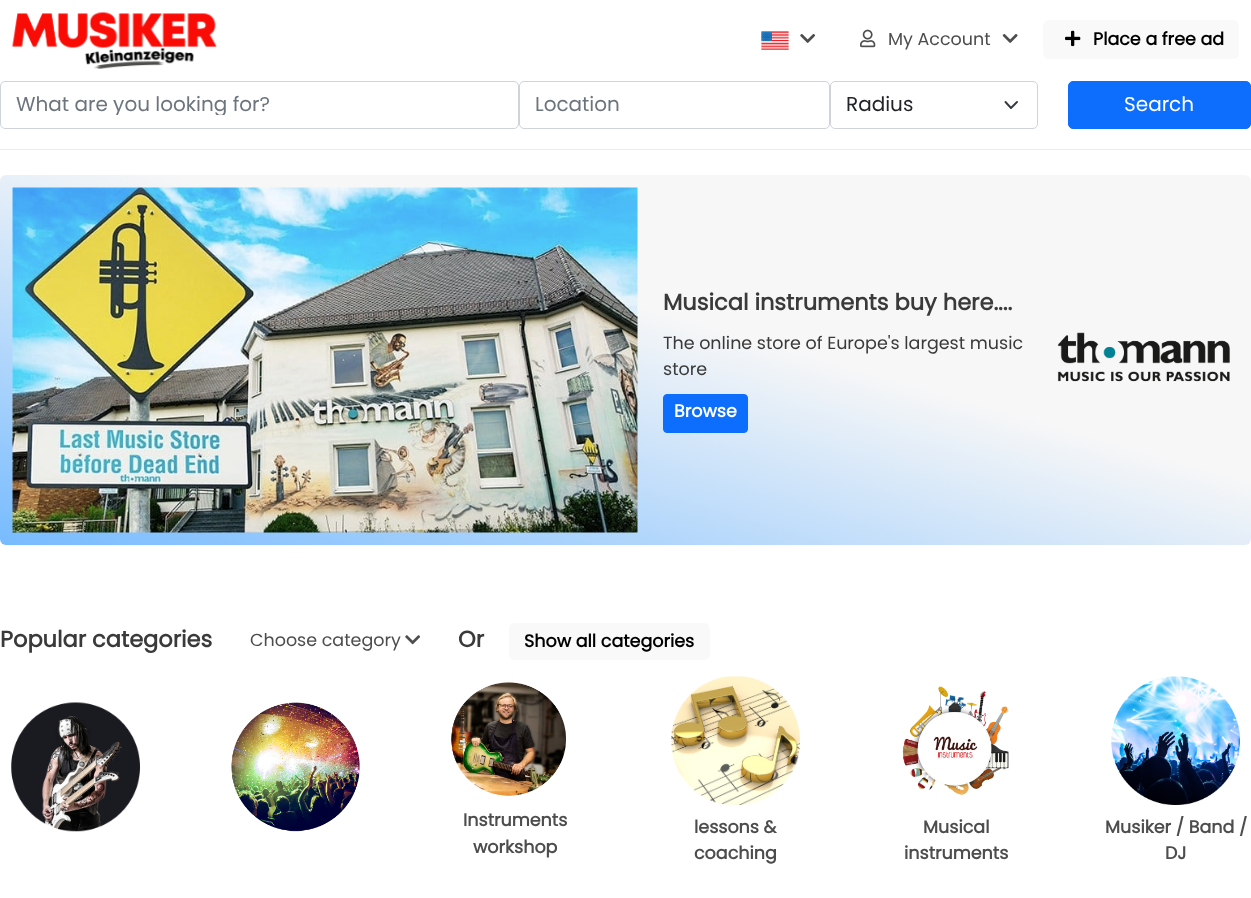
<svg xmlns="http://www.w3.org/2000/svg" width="1251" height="898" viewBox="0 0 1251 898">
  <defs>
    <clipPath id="clip1"><rect x="16" y="95" width="487" height="20"/></clipPath>
    <linearGradient id="g1" gradientUnits="userSpaceOnUse" x1="722" y1="23" x2="529" y2="697"><stop offset="0.42" stop-color="#f7f7f7"/><stop offset="1" stop-color="#77bbff"/></linearGradient>
  </defs>
  <rect width="100%" height="100%" fill="#ffffff"/>
  <rect x="0" y="149" width="1251" height="1" fill="#ebebeb"/>
  <image x="12" y="12" width="205" height="57" href="img1.png"/>
  <image x="761" y="31" width="28" height="19" href="img2.png"/>
  <image x="800" y="34" width="16" height="9" href="img3.png"/>
  <image x="860" y="29" width="16" height="19" href="img4.png"/>
  <text x="888" y="45" font-family="Poppins" font-size="17.5" fill="#4d4d4d">My Account</text>
  <image x="1002" y="34" width="16" height="9" href="img5.png"/>
  <rect x="1043" y="20" width="196" height="39" rx="6" fill="#f9f9f9"/>
  <image x="1065" y="30" width="16" height="17" href="img6.png"/>
  <text x="1093" y="45" font-family="Poppins" font-size="17.5" font-weight="bold" fill="#000000">Place a free ad</text>
  <rect x="0.5" y="81.5" width="518" height="47" rx="4.5" fill="none" stroke="#ced4da"/>
  <g clip-path="url(#clip1)">
    <text x="16" y="111" font-family="Poppins" font-size="20" fill="#6c757d">What are you looking for?</text>
  </g>
  <rect x="519.5" y="81.5" width="310" height="47" rx="4.5" fill="none" stroke="#ced4da"/>
  <text x="535" y="111" font-family="Poppins" font-size="20" fill="#6c757d">Location</text>
  <path d="M1005.5 102L1011 108L1017 102" fill="none" stroke="#343a40" stroke-width="1.9" stroke-linecap="round" stroke-linejoin="round"/>
  <rect x="830.5" y="81.5" width="207" height="47" rx="4.5" fill="none" stroke="#ced4da"/>
  <text x="846" y="111" font-family="Poppins" font-size="20" fill="#212529">Radius</text>
  <rect x="1068.5" y="81.5" width="182" height="47" rx="4.5" fill="#0d6efd" stroke="#0d6efd"/>
  <text x="1124" y="111" font-family="Poppins" font-size="20" fill="#ffffff">Search</text>
  <rect x="0" y="175" width="1251" height="370" rx="6" fill="url(#g1)"/>
  <image x="12" y="187" width="626" height="346" href="img7.png"/>
  <text x="663" y="310" font-family="Poppins" font-size="22.5" font-weight="bold" fill="#3a3a3a">Musical instruments buy here....</text>
  <text x="663" y="349" font-family="Poppins" font-size="17.5" fill="#3a3a3a">The online store of Europe's largest music</text>
  <text x="663" y="375" font-family="Poppins" font-size="17.5" fill="#3a3a3a">store</text>
  <rect x="663.5" y="394.5" width="84" height="38" rx="3.5" fill="#0d6efd" stroke="#0d6efd"/>
  <text x="674" y="417" font-family="Poppins" font-size="17.5" font-weight="bold" fill="#ffffff">Browse</text>
  <image x="1057" y="332" width="173" height="50" href="img8.png"/>
  <text x="0" y="647" font-family="Poppins" font-size="22.5" font-weight="bold" fill="#3a3a3a">Popular categories</text>
  <text x="250" y="646" font-family="Poppins" font-size="17.5" fill="#4d4d4d">Choose category</text>
  <image x="405" y="635" width="16" height="10" href="img9.png"/>
  <text x="458" y="647" font-family="Poppins" font-size="22.5" font-weight="bold" fill="#3a3a3a">Or</text>
  <rect x="509" y="623" width="201" height="37" rx="6" fill="#f9f9f9"/>
  <text x="524" y="647" font-family="Poppins" font-size="17.5" font-weight="bold" fill="#000000">Show all categories</text>
  <image x="11" y="702" width="129" height="130" href="img10.png"/>
  <image x="231" y="702" width="129" height="130" href="img11.png"/>
  <image x="451" y="682" width="115" height="114" href="img12.png"/>
  <text x="463" y="826" font-family="Poppins" font-size="17.5" font-weight="bold" fill="#4d4d4d">Instruments</text>
  <text x="473" y="853" font-family="Poppins" font-size="17.5" font-weight="bold" fill="#4d4d4d">workshop</text>
  <image x="671" y="676" width="129" height="129" href="img13.png"/>
  <text x="694" y="833" font-family="Poppins" font-size="17.5" font-weight="bold" fill="#4d4d4d">lessons &amp;</text>
  <text x="694" y="859" font-family="Poppins" font-size="17.5" font-weight="bold" fill="#4d4d4d">coaching</text>
  <image x="902" y="686" width="107" height="109" href="img14.png"/>
  <text x="923" y="833" font-family="Poppins" font-size="17.5" font-weight="bold" fill="#4d4d4d">Musical</text>
  <text x="904" y="859" font-family="Poppins" font-size="17.5" font-weight="bold" fill="#4d4d4d">instruments</text>
  <image x="1111" y="676" width="129" height="129" href="img15.png"/>
  <text x="1105" y="833" font-family="Poppins" font-size="17.5" font-weight="bold" fill="#4d4d4d">Musiker / Band /</text>
  <text x="1165" y="859" font-family="Poppins" font-size="17.5" font-weight="bold" fill="#4d4d4d">DJ</text>
</svg>
